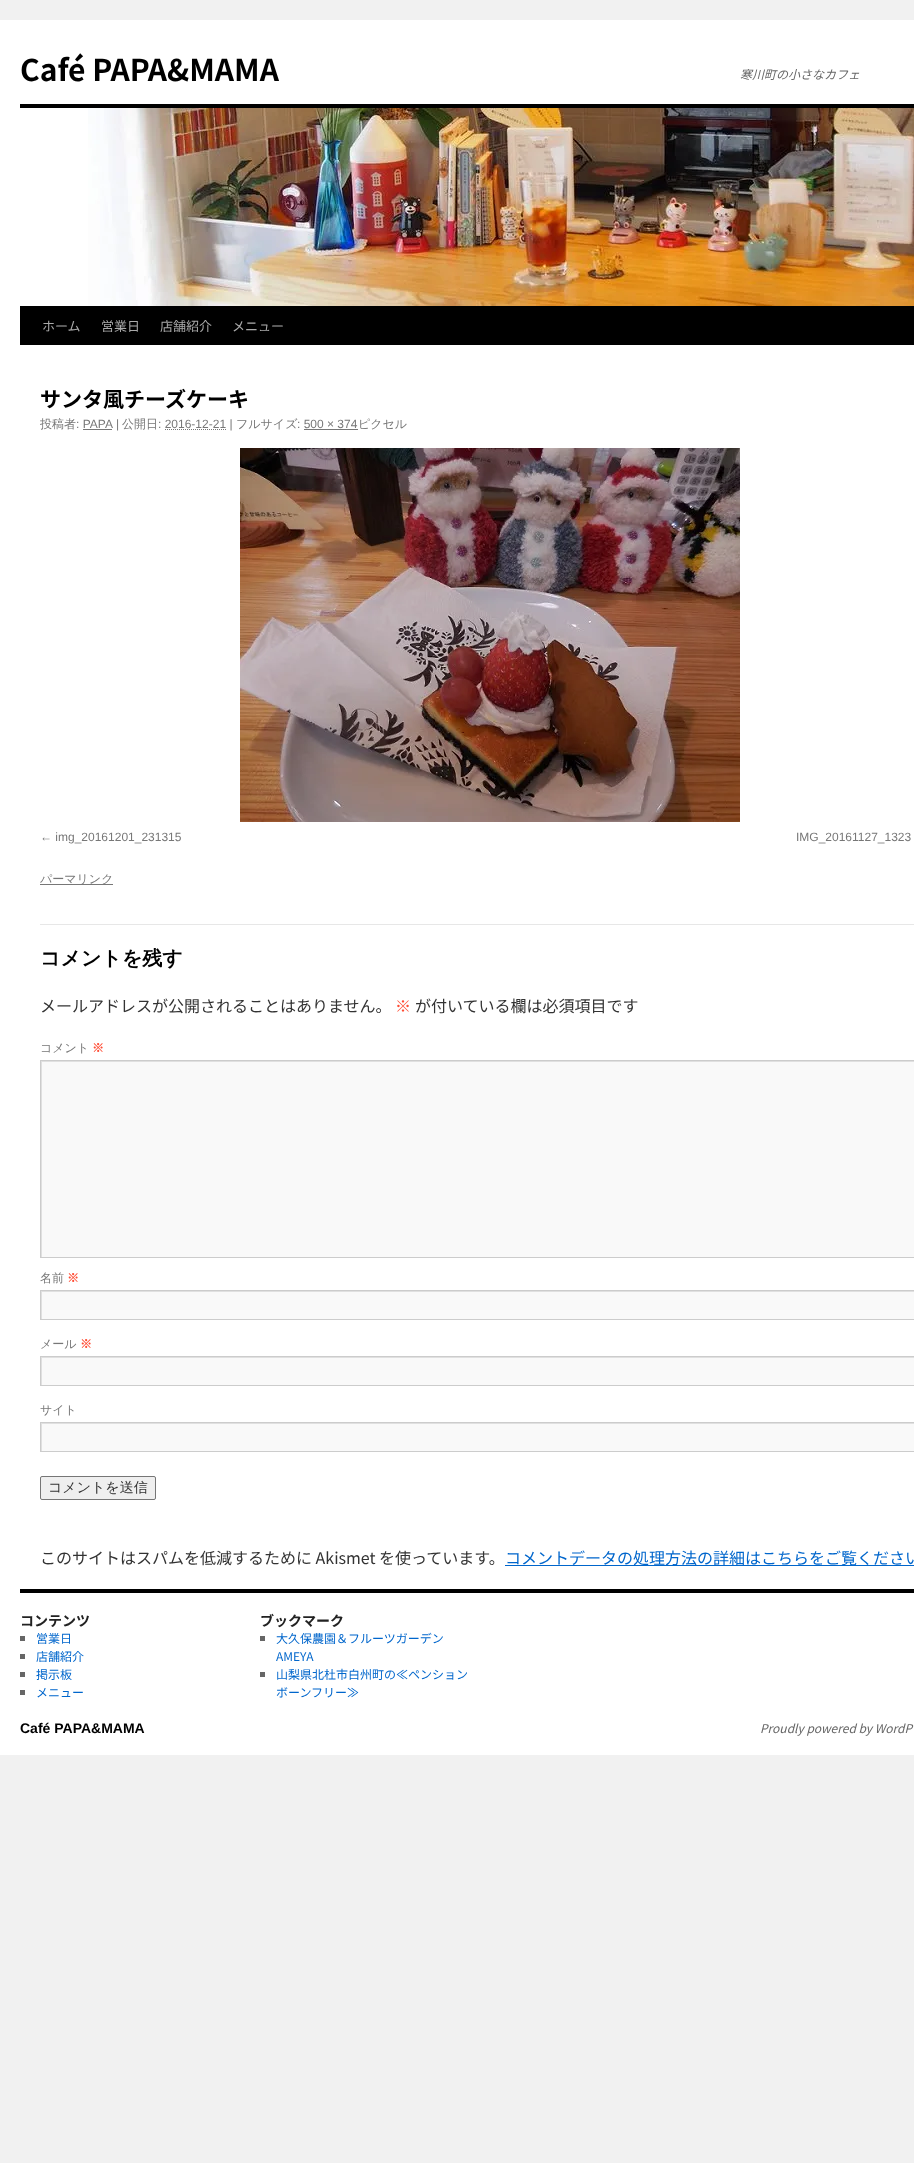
<svg xmlns="http://www.w3.org/2000/svg" width="914" height="2163" viewBox="0 0 914 2163">
  <defs>
    <clipPath id="clip1"><rect x="41" y="1061" width="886" height="196"/></clipPath>
    <clipPath id="clip2"><rect x="41" y="1291" width="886" height="28"/></clipPath>
    <clipPath id="clip3"><rect x="41" y="1357" width="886" height="28"/></clipPath>
    <clipPath id="clip4"><rect x="41" y="1423" width="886" height="28"/></clipPath>
  </defs>
  <rect width="100%" height="100%" fill="#f1f1f1"/>
  <rect x="0" y="20" width="914" height="1735" fill="#ffffff"/>
  <text x="20" y="81" font-family="Noto Sans JP" font-size="30" font-weight="bold" fill="#000000">Café PAPA&amp;MAMA</text>
  <text x="740" y="79" font-family="Noto Sans JP" font-size="12" font-style="italic" fill="#666666">寒川町の小さなカフェ</text>
  <rect x="20" y="104" width="894" height="4" fill="#000000"/>
  <rect x="20" y="306" width="894" height="39" fill="#000000"/>
  <image x="88" y="108" width="826" height="198" href="img1.png"/>
  <text x="42" y="331" font-family="Noto Sans JP" font-size="13" fill="#aaaaaa">ホーム</text>
  <text x="101" y="331" font-family="Noto Sans JP" font-size="13" fill="#aaaaaa">営業日</text>
  <text x="160" y="331" font-family="Noto Sans JP" font-size="13" fill="#aaaaaa">店舗紹介</text>
  <text x="232" y="331" font-family="Noto Sans JP" font-size="13" fill="#aaaaaa">メニュー</text>
  <text x="40" y="407" font-family="Noto Sans JP" font-size="21" font-weight="bold" fill="#000000">サンタ風チーズケーキ</text>
  <text x="40" y="428" font-family="WenQuanYi Zen Hei" font-size="12" font-weight="500" fill="#777777">投稿者</text>
  <text x="76" y="428" font-family="Liberation Sans" font-size="12" fill="#777777">: PAPA</text>
  <text x="116" y="428" font-family="Liberation Sans" font-size="12" fill="#777777">|</text>
  <text x="122" y="428" font-family="WenQuanYi Zen Hei" font-size="12" font-weight="500" fill="#777777">公開日</text>
  <text x="158" y="428" font-family="Liberation Sans" font-size="12" fill="#777777">: 2016-12-21 |</text>
  <text x="236" y="428" font-family="WenQuanYi Zen Hei" font-size="12" font-weight="500" fill="#777777">フルサイズ</text>
  <text x="297" y="428" font-family="Liberation Sans" font-size="12" fill="#777777">: 500 × 374</text>
  <text x="358" y="428" font-family="WenQuanYi Zen Hei" font-size="12" font-weight="500" fill="#777777">ピクセル</text>
  <rect x="83" y="429" width="29" height="1" fill="#777777"/>
  <path d="M165 429.5H226" fill="none" stroke="#777777" stroke-dasharray="1 1"/>
  <rect x="304" y="429" width="54" height="1" fill="#777777"/>
  <image x="240" y="448" width="500" height="374" href="img2.png"/>
  <text x="40" y="841" font-family="Liberation Sans" font-size="12" fill="#777777">← img_20161201_231315</text>
  <text x="796" y="841" font-family="Liberation Sans" font-size="12" fill="#777777">IMG_20161127_1323</text>
  <rect x="40" y="884" width="73" height="1" fill="#777777"/>
  <text x="40" y="883" font-family="WenQuanYi Zen Hei" font-size="12" font-weight="500" fill="#777777">パーマリンク</text>
  <rect x="40" y="924" width="874" height="1" fill="#e7e7e7"/>
  <text x="40" y="965" font-family="WenQuanYi Zen Hei" font-size="20" font-weight="bold" fill="#000000">コメントを残す</text>
  <text x="40" y="1012" font-family="Noto Sans JP" font-size="16" fill="#333333">メールアドレスが公開されることはありません。</text>
  <text x="395" y="1012" font-family="Noto Sans JP" font-size="16" font-weight="bold" fill="#ff4b33">※</text>
  <text x="415" y="1012" font-family="Noto Sans JP" font-size="16" fill="#333333">が付いている欄は必須項目です</text>
  <text x="40" y="1052" font-family="WenQuanYi Zen Hei" font-size="12" font-weight="500" fill="#777777">コメント</text>
  <text x="92" y="1052" font-family="WenQuanYi Zen Hei" font-size="12" font-weight="bold" fill="#ff4b33">※</text>
  <rect x="42" y="1062" width="872" height="195" fill="#f9f9f9"/>
  <g clip-path="url(#clip1)">
    <path d="M-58 962H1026V1356H-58ZM42 1062H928V1258H42Z" fill="#e0e0e0" fill-rule="evenodd"/>
  </g>
  <rect x="40.5" y="1060.5" width="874" height="197" fill="none" stroke="#cccccc"/>
  <text x="40" y="1282" font-family="WenQuanYi Zen Hei" font-size="12" font-weight="500" fill="#777777">名前</text>
  <text x="67" y="1282" font-family="WenQuanYi Zen Hei" font-size="12" font-weight="bold" fill="#ff4b33">※</text>
  <rect x="42" y="1292" width="872" height="27" fill="#f9f9f9"/>
  <g clip-path="url(#clip2)">
    <path d="M-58 1192H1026V1418H-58ZM42 1292H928V1320H42Z" fill="#e0e0e0" fill-rule="evenodd"/>
  </g>
  <rect x="40.5" y="1290.5" width="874" height="29" fill="none" stroke="#cccccc"/>
  <text x="40" y="1348" font-family="WenQuanYi Zen Hei" font-size="12" font-weight="500" fill="#777777">メール</text>
  <text x="80" y="1348" font-family="WenQuanYi Zen Hei" font-size="12" font-weight="bold" fill="#ff4b33">※</text>
  <rect x="42" y="1358" width="872" height="27" fill="#f9f9f9"/>
  <g clip-path="url(#clip3)">
    <path d="M-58 1258H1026V1484H-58ZM42 1358H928V1386H42Z" fill="#e0e0e0" fill-rule="evenodd"/>
  </g>
  <rect x="40.5" y="1356.5" width="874" height="29" fill="none" stroke="#cccccc"/>
  <text x="40" y="1414" font-family="WenQuanYi Zen Hei" font-size="12" font-weight="500" fill="#777777">サイト</text>
  <rect x="42" y="1424" width="872" height="27" fill="#f9f9f9"/>
  <g clip-path="url(#clip4)">
    <path d="M-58 1324H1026V1550H-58ZM42 1424H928V1452H42Z" fill="#e0e0e0" fill-rule="evenodd"/>
  </g>
  <rect x="40.5" y="1422.5" width="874" height="29" fill="none" stroke="#cccccc"/>
  <rect x="40.5" y="1476.5" width="115" height="23" rx="1.5" fill="#efefef" stroke="#767676"/>
  <text x="48" y="1492" font-family="WenQuanYi Zen Hei" font-size="14" font-weight="500" fill="#333333">コメントを送信</text>
  <text x="40" y="1564" font-family="Noto Sans JP" font-size="16" fill="#333333">このサイトはスパムを低減するために Akismet を使っています。</text>
  <rect x="505" y="1565" width="409" height="1" fill="#0066cc"/>
  <text x="505" y="1564" font-family="Noto Sans JP" font-size="16" fill="#0066cc">コメントデータの処理方法の詳細はこちらをご覧ください</text>
  <rect x="20" y="1589" width="894" height="4" fill="#000000"/>
  <text x="20" y="1626" font-family="Noto Sans JP" font-size="14" font-weight="bold" fill="#222222">コンテンツ</text>
  <rect x="20" y="1636" width="5" height="5" fill="#666666"/>
  <text x="36" y="1643" font-family="Noto Sans JP" font-size="12" fill="#0066cc">営業日</text>
  <rect x="20" y="1654" width="5" height="5" fill="#666666"/>
  <text x="36" y="1661" font-family="Noto Sans JP" font-size="12" fill="#0066cc">店舗紹介</text>
  <rect x="20" y="1672" width="5" height="5" fill="#666666"/>
  <text x="36" y="1679" font-family="Noto Sans JP" font-size="12" fill="#0066cc">掲示板</text>
  <rect x="20" y="1690" width="5" height="5" fill="#666666"/>
  <text x="36" y="1697" font-family="Noto Sans JP" font-size="12" fill="#0066cc">メニュー</text>
  <text x="260" y="1626" font-family="Noto Sans JP" font-size="14" font-weight="bold" fill="#222222">ブックマーク</text>
  <rect x="260" y="1636" width="5" height="5" fill="#666666"/>
  <text x="276" y="1643" font-family="Noto Sans JP" font-size="12" fill="#0066cc">大久保農園＆フルーツガーデン</text>
  <text x="276" y="1661" font-family="Noto Sans JP" font-size="12" fill="#0066cc">AMEYA</text>
  <rect x="260" y="1672" width="5" height="5" fill="#666666"/>
  <text x="276" y="1679" font-family="Noto Sans JP" font-size="12" fill="#0066cc">山梨県北杜市白州町の≪ペンション</text>
  <text x="276" y="1697" font-family="Noto Sans JP" font-size="12" fill="#0066cc">ボーンフリー≫</text>
  <text x="20" y="1733" font-family="Liberation Sans" font-size="14" font-weight="bold" fill="#000000">Café PAPA&amp;MAMA</text>
  <text x="760" y="1733" font-family="Noto Sans JP" font-size="12" font-style="italic" fill="#666666">Proudly powered by WordP</text>
</svg>
